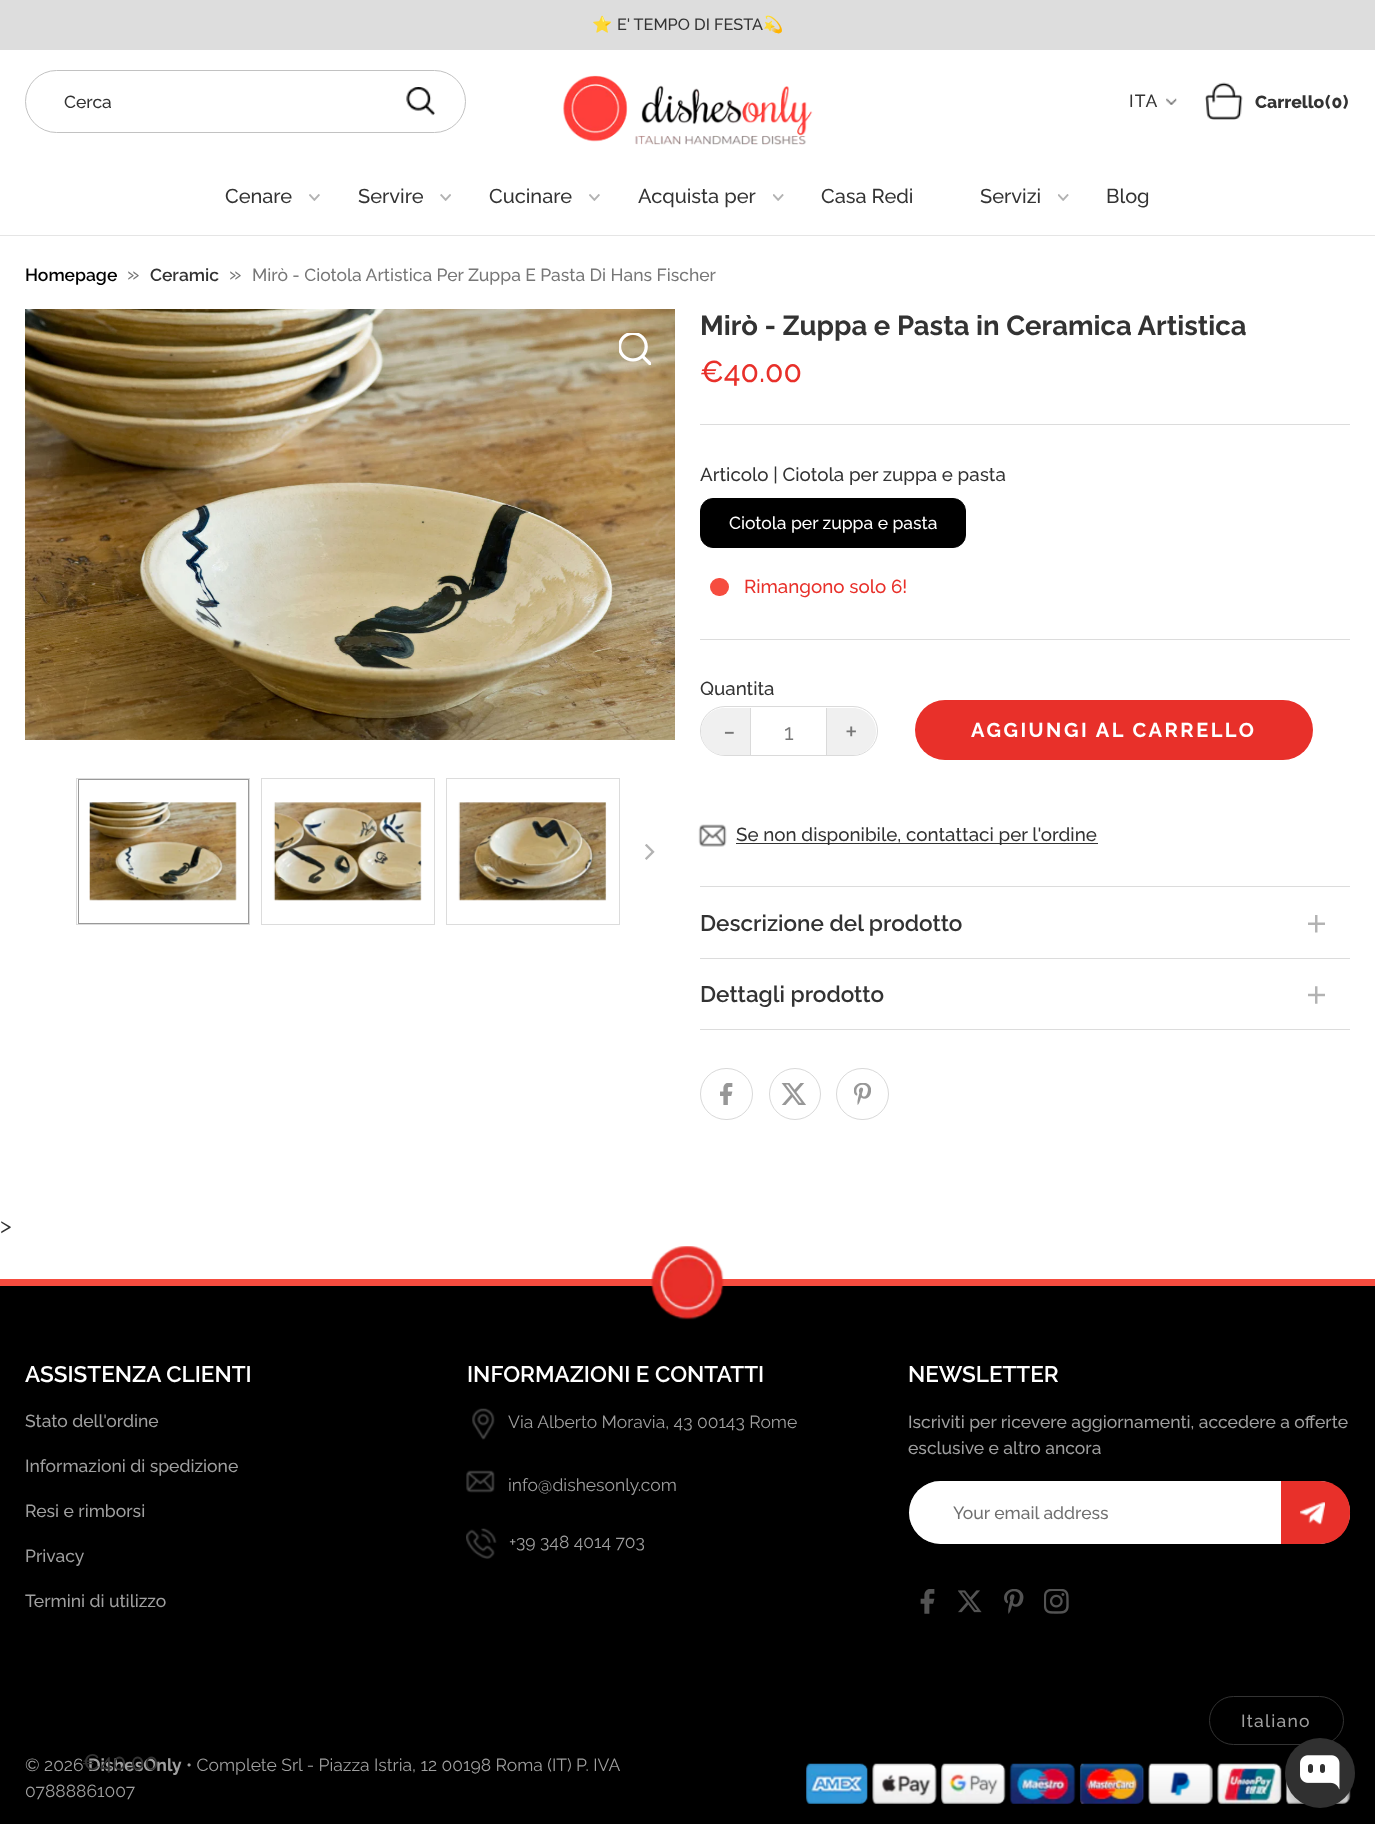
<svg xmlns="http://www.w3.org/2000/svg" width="1375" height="1824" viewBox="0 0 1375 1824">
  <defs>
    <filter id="blur1" x="-50%" y="-200%" width="200%" height="500%"><feGaussianBlur stdDeviation="7.5"/></filter>
  </defs>
  <rect width="100%" height="100%" fill="#ffffff"/>
  <rect x="0" y="0" width="1375" height="50" fill="#dddddd"/>
  <text x="592" y="30" font-family="Noto Color Emoji" font-size="16.25" fill="#333333">⭐️</text>
  <text x="617" y="30" font-family="Raleway" font-size="16.25" font-weight="500" fill="#333333">E' TEMPO DI FESTA</text>
  <text x="763" y="30" font-family="Noto Color Emoji" font-size="16.25" fill="#333333">💫</text>
  <rect x="0" y="235" width="1375" height="1" fill="#e5e5e5"/>
  <rect x="25.5" y="70.5" width="440" height="62" rx="31" fill="none" stroke="#c2c2c2"/>
  <text x="64" y="108" font-family="Raleway" font-size="17.5" font-weight="500" fill="#333333">Cerca</text>
  <image x="406" y="87" width="29" height="29" href="img1.png"/>
  <image x="563" y="75" width="250" height="70" href="img2.png"/>
  <text x="1129" y="107" font-family="Raleway" font-size="17.5" font-weight="500" letter-spacing="1.25" fill="#333333">ITA</text>
  <image x="1166" y="98" width="11" height="7" href="img3.png"/>
  <image x="1205" y="82" width="38" height="38" href="img4.png"/>
  <text x="1255" y="108" font-family="Raleway" font-size="17.5" font-weight="800" fill="#333333">Carrello</text>
  <text x="1325" y="108" font-family="Raleway" font-size="17.5" font-weight="800" letter-spacing="1" fill="#333333">(0)</text>
  <text x="225" y="203" font-family="Raleway" font-size="20" font-weight="500" fill="#333333">Cenare</text>
  <image x="309" y="194" width="11" height="7" href="img5.png"/>
  <text x="358" y="203" font-family="Raleway" font-size="20" font-weight="500" fill="#333333">Servire</text>
  <image x="440" y="194" width="11" height="7" href="img6.png"/>
  <text x="489" y="203" font-family="Raleway" font-size="20" font-weight="500" fill="#333333">Cucinare</text>
  <image x="589" y="194" width="11" height="7" href="img5.png"/>
  <text x="638" y="203" font-family="Raleway" font-size="20" font-weight="500" fill="#333333">Acquista per</text>
  <image x="773" y="194" width="11" height="7" href="img7.png"/>
  <text x="821" y="203" font-family="Raleway" font-size="20" font-weight="500" fill="#333333">Casa Redi</text>
  <text x="980" y="203" font-family="Raleway" font-size="20" font-weight="500" fill="#333333">Servizi</text>
  <image x="1058" y="194" width="11" height="7" href="img7.png"/>
  <text x="1106" y="203" font-family="Raleway" font-size="20" font-weight="500" fill="#333333">Blog</text>
  <text x="25" y="281" font-family="Raleway" font-size="17.5" font-weight="600" fill="#000000">Homepage</text>
  <text x="127" y="281" font-family="Raleway" font-size="21" font-weight="500" fill="#777777">»</text>
  <text x="150" y="281" font-family="Raleway" font-size="17.5" font-weight="600" fill="#333333">Ceramic</text>
  <text x="229" y="281" font-family="Raleway" font-size="21" font-weight="500" fill="#777777">»</text>
  <text x="252" y="281" font-family="Raleway" font-size="17.5" font-weight="500" fill="#777777">Mirò - Ciotola Artistica Per Zuppa E Pasta Di Hans Fischer</text>
  <text x="0" y="1233" font-family="Raleway" font-size="22.5" fill="#333333">&gt;</text>
  <image x="25" y="309" width="650" height="431" href="img8.png"/>
  <image x="619" y="333" width="32" height="32" href="img9.png"/>
  <rect x="76.5" y="778.5" width="173" height="146" fill="none" stroke="#dcdcdc"/>
  <image x="89" y="802" width="148" height="99" href="img10.png"/>
  <rect x="78.5" y="779.5" width="170" height="144" fill="none" stroke="#999999"/>
  <rect x="261.5" y="778.5" width="173" height="146" fill="none" stroke="#dcdcdc"/>
  <image x="273" y="802" width="149" height="99" href="img11.png"/>
  <rect x="446.5" y="778.5" width="173" height="146" fill="none" stroke="#dcdcdc"/>
  <image x="458" y="802" width="149" height="99" href="img12.png"/>
  <image x="645" y="844" width="10" height="16" href="img13.png"/>
  <text x="700" y="335" font-family="Raleway" font-size="27.5" font-weight="bold" fill="#333333">Mirò - Zuppa e Pasta in Ceramica Artistica</text>
  <rect x="700" y="424" width="650" height="1" fill="#dcdcdc"/>
  <text x="700" y="382" font-family="Raleway" font-size="30" font-weight="500" fill="#e8302a">€40.00</text>
  <text x="700" y="481" font-family="Raleway" font-size="18.75" font-weight="500" fill="#333333">Articolo | Ciotola per zuppa e pasta</text>
  <rect x="700.5" y="498.5" width="265" height="49" rx="12.5" fill="#000000" stroke="#000000"/>
  <text x="729" y="529" font-family="Raleway" font-size="17.5" font-weight="500" fill="#ffffff">Ciotola per zuppa e pasta</text>
  <rect x="710" y="578" width="19" height="18" rx="9" fill="#f64c3f"/>
  <text x="744" y="593" font-family="Raleway" font-size="18.75" font-weight="500" fill="#e8302a">Rimangono solo 6!</text>
  <rect x="700" y="639" width="650" height="1" fill="#dcdcdc"/>
  <text x="700" y="695" font-family="Raleway" font-size="18.75" font-weight="500" fill="#333333">Quantita</text>
  <rect x="700.5" y="706.5" width="177" height="49" rx="24.5" fill="none" stroke="#dadada"/>
  <path d="M724.5 708H751V755H724.5C711.5 755 701 744.5 701 731.5C701 718.5 711.5 708 724.5 708Z" fill="#f0f0f0"/>
  <rect x="750" y="708" width="1" height="47" fill="#dadada"/>
  <text x="723" y="741" font-family="Raleway" font-size="30" letter-spacing="2" fill="#777777">-</text>
  <text x="784" y="740" font-family="Raleway" font-size="22.5" fill="#777777">1</text>
  <path d="M826 708H852.5C865.5 708 876 718.5 876 731.5C876 744.5 865.5 755 852.5 755H826Z" fill="#f0f0f0"/>
  <rect x="826" y="708" width="1" height="47" fill="#dadada"/>
  <text x="845" y="742" font-family="Raleway" font-size="30" letter-spacing="2" fill="#777777">+</text>
  <rect x="915" y="700" width="398" height="60" rx="30" fill="#e8302a"/>
  <text x="971" y="737" font-family="Raleway" font-size="20" font-weight="bold" letter-spacing="2.5" fill="#ffffff">AGGIUNGI AL CARRELLO</text>
  <image x="698" y="824" width="29" height="23" href="img14.png"/>
  <rect x="736" y="843" width="362" height="1" fill="#333333"/>
  <text x="736" y="841" font-family="Raleway" font-size="18.75" font-weight="500" fill="#333333">Se non disponibile, contattaci per l'ordine</text>
  <rect x="700" y="886" width="650" height="1" fill="#dcdcdc"/>
  <text x="700" y="931" font-family="Raleway" font-size="22.5" font-weight="600" fill="#333333">Descrizione del prodotto</text>
  <image x="1308" y="915" width="17" height="18" href="img15.png"/>
  <rect x="700" y="958" width="650" height="1" fill="#dcdcdc"/>
  <text x="700" y="1002" font-family="Raleway" font-size="22.5" font-weight="600" fill="#333333">Dettagli prodotto</text>
  <image x="1308" y="986" width="17" height="18" href="img16.png"/>
  <rect x="700" y="1029" width="650" height="1" fill="#dcdcdc"/>
  <rect x="700.5" y="1068.5" width="52" height="51" rx="25.5" fill="none" stroke="#d9d9d9"/>
  <image x="720" y="1083" width="13" height="22" href="img17.png"/>
  <circle cx="795" cy="1094" r="25.5" fill="none" stroke="#d9d9d9"/>
  <image x="781" y="1083" width="25" height="22" href="img18.png"/>
  <rect x="836.5" y="1068.5" width="52" height="51" rx="25.5" fill="none" stroke="#d9d9d9"/>
  <image x="854" y="1083" width="17" height="22" href="img19.png"/>
  <rect x="0" y="1286" width="1375" height="538" fill="#000000"/>
  <text x="25" y="1771" font-family="Raleway" font-size="17.5" fill="#9f9f9f">© 2026</text>
  <text x="88" y="1771" font-family="Raleway" font-size="17.5" font-weight="bold" fill="#9f9f9f">DishesOnly</text>
  <text x="82" y="1770" font-family="Raleway" font-size="22.5" font-weight="500" fill="#333333">€40.00</text>
  <rect x="0" y="1279" width="1375" height="7" fill="#f64c3f"/>
  <image x="651" y="1246" width="73" height="74" href="img20.png"/>
  <text x="25" y="1382" font-family="Raleway" font-size="22.5" font-weight="600" fill="#ffffff">ASSISTENZA CLIENTI</text>
  <text x="25" y="1427" font-family="Raleway" font-size="17.5" font-weight="500" fill="#9f9f9f">Stato dell'ordine</text>
  <text x="25" y="1472" font-family="Raleway" font-size="17.5" font-weight="500" fill="#9f9f9f">Informazioni di spedizione</text>
  <text x="25" y="1517" font-family="Raleway" font-size="17.5" font-weight="500" fill="#9f9f9f">Resi e rimborsi</text>
  <text x="25" y="1562" font-family="Raleway" font-size="17.5" font-weight="500" fill="#9f9f9f">Privacy</text>
  <text x="25" y="1607" font-family="Raleway" font-size="17.5" font-weight="500" fill="#9f9f9f">Termini di utilizzo</text>
  <text x="467" y="1382" font-family="Raleway" font-size="22.5" font-weight="600" fill="#ffffff">INFORMAZIONI E CONTATTI</text>
  <image x="472" y="1408" width="23" height="32" href="img21.png"/>
  <text x="508" y="1428" font-family="Raleway" font-size="17.5" fill="#9f9f9f">Via Alberto Moravia, 43 00143 Rome</text>
  <image x="466" y="1470" width="29" height="23" href="img22.png"/>
  <text x="508" y="1491" font-family="Raleway" font-size="17.5" fill="#9f9f9f">info@dishesonly.com</text>
  <image x="466" y="1528" width="31" height="31" href="img23.png"/>
  <text x="509" y="1548" font-family="Raleway" font-size="17.5" fill="#9f9f9f">+39 348 4014 703</text>
  <text x="908" y="1382" font-family="Raleway" font-size="22.5" font-weight="600" fill="#ffffff">NEWSLETTER</text>
  <text x="908" y="1428" font-family="Raleway" font-size="17.5" font-weight="500" fill="#9f9f9f">Iscriviti per ricevere aggiornamenti, accedere a offerte</text>
  <text x="908" y="1454" font-family="Raleway" font-size="17.5" font-weight="500" fill="#9f9f9f">esclusive e altro ancora</text>
  <rect x="909" y="1481" width="441" height="63" rx="31.5" fill="#ffffff"/>
  <rect x="909.5" y="1481.5" width="440" height="62" rx="31" fill="none" stroke="#ffffff" stroke-opacity="0.35"/>
  <text x="953" y="1519" font-family="Raleway" font-size="17.5" font-weight="500" fill="#707070">Your email address</text>
  <path d="M1281 1481H1320C1336.5 1481 1350 1494.5 1350 1511V1514C1350 1530.5 1336.5 1544 1320 1544H1281Z" fill="#e8302a"/>
  <image x="1300" y="1502" width="25" height="23" href="img24.png"/>
  <image x="920" y="1589" width="15" height="25" href="img25.png"/>
  <image x="958" y="1590" width="24" height="23" href="img26.png"/>
  <image x="1004" y="1589" width="20" height="25" href="img27.png"/>
  <image x="1044" y="1589" width="25" height="25" href="img28.png"/>
  <rect x="1209.5" y="1696.5" width="134" height="48" rx="24" fill="none" stroke="#333333"/>
  <text x="1241" y="1727" font-family="Raleway" font-size="17.5" font-weight="500" letter-spacing="1.25" fill="#9f9f9f">Italiano</text>
  <image x="806" y="1763" width="62" height="41" href="img29.png"/>
  <image x="872" y="1763" width="65" height="41" href="img30.png"/>
  <image x="941" y="1763" width="65" height="41" href="img31.png"/>
  <image x="1009" y="1763" width="67" height="41" href="img32.png"/>
  <image x="1079" y="1763" width="66" height="41" href="img33.png"/>
  <image x="1148" y="1763" width="65" height="41" href="img34.png"/>
  <image x="1217" y="1763" width="65" height="41" href="img35.png"/>
  <image x="1285" y="1770" width="66" height="34" href="img36.png"/>
  <text x="186" y="1771" font-family="Raleway" font-size="17.5" fill="#9f9f9f">• Complete Srl - Piazza Istria, 12 00198 Roma (IT) P. IVA</text>
  <text x="25" y="1797" font-family="Raleway" font-size="17.5" fill="#9f9f9f">07888861007</text>
  <rect x="1285" y="1745" width="70" height="70" rx="35" fill="#000000" fill-opacity="0.25" filter="url(#blur1)"/>
  <circle cx="1320" cy="1773" r="35" fill="#303030"/>
  <image x="1300" y="1755" width="40" height="35" href="img37.png"/>
</svg>
